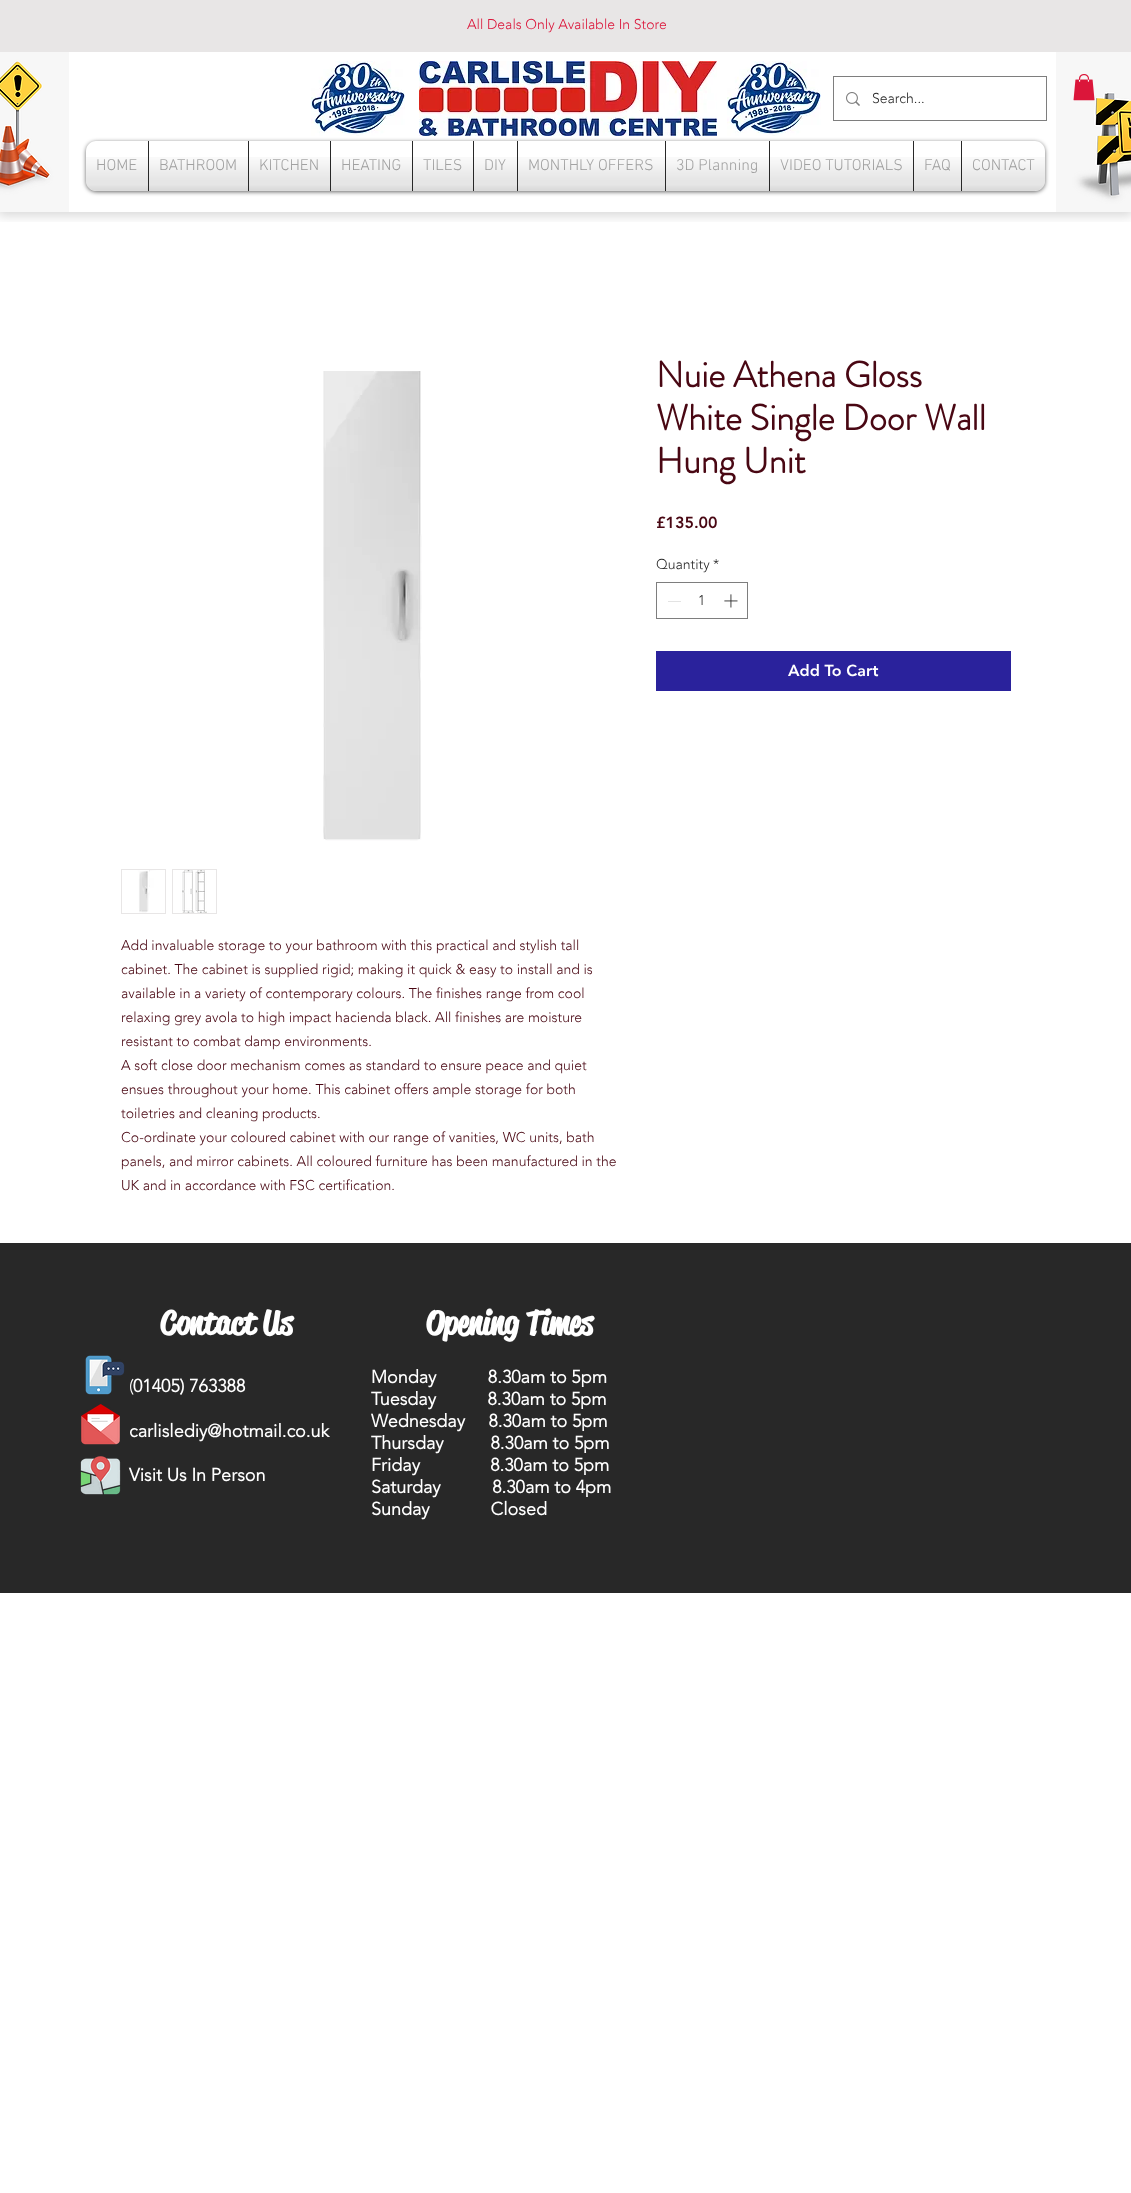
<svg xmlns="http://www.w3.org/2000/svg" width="1131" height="2193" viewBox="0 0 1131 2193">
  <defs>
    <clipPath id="clip1"><rect x="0" y="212" width="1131" height="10"/></clipPath>
    <filter id="blur1" x="-50%" y="-200%" width="200%" height="500%"><feGaussianBlur stdDeviation="5.5"/></filter>
    <filter id="blur2" x="-50%" y="-200%" width="200%" height="500%"><feGaussianBlur stdDeviation="2"/></filter>
  </defs>
  <rect width="100%" height="100%" fill="#ffffff"/>
  <g clip-path="url(#clip1)">
    <rect x="-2" y="0" width="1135" height="216" fill="#000000" fill-opacity="0.15" filter="url(#blur1)"/>
  </g>
  <rect x="0" y="0" width="1131" height="52" fill="#e8e6e6"/>
  <text x="467" y="29" font-family="'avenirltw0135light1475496'" font-size="14" font-weight="300" fill="#db163a">All Deals Only Available In Store</text>
  <image x="0" y="52" width="69" height="160" href="img1.png"/>
  <image x="311" y="61" width="94" height="75" href="img2.png"/>
  <image x="419" y="61" width="298" height="75" href="img3.png"/>
  <image x="727" y="61" width="94" height="75" href="img2.png"/>
  <rect x="833.5" y="76.5" width="213" height="44" fill="none" stroke="#7e7e7e"/>
  <image x="846" y="92" width="14" height="14" href="img4.png"/>
  <text x="872" y="103" font-family="'avenirltw0135light1475496'" font-size="14" font-weight="300" fill="#282828">Search...</text>
  <image x="1056" y="52" width="75" height="160" href="img5.png"/>
  <rect x="86" y="142" width="959" height="50" rx="10" fill="#000000" fill-opacity="0.6" filter="url(#blur2)"/>
  <image x="86" y="181" width="959" height="10" href="img6.png"/>
  <path d="M96 141H148V191H96C90.5 191 86 186.5 86 181V151C86 145.5 90.5 141 96 141Z" fill="#ffffff"/>
  <text x="96" y="170" font-family="'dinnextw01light'" font-size="16" font-weight="300" fill="#999999">HOME</text>
  <image x="97" y="159" width="39" height="11" href="img7.png"/>
  <image x="86" y="157" width="62" height="34" href="img8.png"/>
  <rect x="149" y="141" width="99" height="50" fill="#ffffff"/>
  <rect x="148" y="141" width="1" height="50" fill="#282828"/>
  <text x="159" y="170" font-family="'dinnextw01light'" font-size="16" font-weight="300" fill="#999999">BATHROOM</text>
  <image x="160" y="159" width="76" height="11" href="img9.png"/>
  <image x="149" y="157" width="99" height="34" href="img10.png"/>
  <rect x="249" y="141" width="81" height="50" fill="#ffffff"/>
  <rect x="248" y="141" width="1" height="50" fill="#282828"/>
  <text x="259" y="170" font-family="'dinnextw01light'" font-size="16" font-weight="300" fill="#999999">KITCHEN</text>
  <image x="260" y="159" width="58" height="11" href="img11.png"/>
  <image x="249" y="157" width="81" height="34" href="img12.png"/>
  <rect x="331" y="141" width="81" height="50" fill="#ffffff"/>
  <rect x="330" y="141" width="1" height="50" fill="#282828"/>
  <text x="341" y="170" font-family="'dinnextw01light'" font-size="16" font-weight="300" fill="#999999">HEATING</text>
  <image x="342" y="159" width="58" height="11" href="img13.png"/>
  <image x="331" y="157" width="81" height="34" href="img14.png"/>
  <rect x="413" y="141" width="60" height="50" fill="#ffffff"/>
  <rect x="412" y="141" width="1" height="50" fill="#282828"/>
  <text x="423" y="170" font-family="'dinnextw01light'" font-size="16" font-weight="300" fill="#999999">TILES</text>
  <image x="423" y="159" width="38" height="11" href="img15.png"/>
  <image x="413" y="157" width="60" height="34" href="img16.png"/>
  <rect x="474" y="141" width="43" height="50" fill="#ffffff"/>
  <rect x="473" y="141" width="1" height="50" fill="#282828"/>
  <text x="484" y="170" font-family="'dinnextw01light'" font-size="16" font-weight="300" fill="#999999">DIY</text>
  <image x="485" y="159" width="21" height="11" href="img17.png"/>
  <image x="474" y="157" width="43" height="34" href="img18.png"/>
  <rect x="518" y="141" width="147" height="50" fill="#ffffff"/>
  <rect x="517" y="141" width="1" height="50" fill="#282828"/>
  <text x="528" y="170" font-family="'dinnextw01light'" font-size="16" font-weight="300" fill="#999999">MONTHLY OFFERS</text>
  <image x="529" y="159" width="124" height="11" href="img19.png"/>
  <image x="518" y="157" width="147" height="34" href="img20.png"/>
  <rect x="666" y="141" width="103" height="50" fill="#ffffff"/>
  <rect x="665" y="141" width="1" height="50" fill="#282828"/>
  <text x="676" y="170" font-family="'dinnextw01light'" font-size="16" font-weight="300" fill="#999999">3D Planning</text>
  <image x="677" y="159" width="80" height="14" href="img21.png"/>
  <image x="666" y="157" width="103" height="34" href="img22.png"/>
  <rect x="770" y="141" width="143" height="50" fill="#ffffff"/>
  <rect x="769" y="141" width="1" height="50" fill="#282828"/>
  <text x="780" y="170" font-family="'dinnextw01light'" font-size="16" font-weight="300" fill="#999999">VIDEO TUTORIALS</text>
  <image x="780" y="159" width="122" height="11" href="img23.png"/>
  <image x="770" y="157" width="143" height="34" href="img24.png"/>
  <rect x="914" y="141" width="47" height="50" fill="#ffffff"/>
  <rect x="913" y="141" width="1" height="50" fill="#282828"/>
  <text x="924" y="170" font-family="'dinnextw01light'" font-size="16" font-weight="300" fill="#999999">FAQ</text>
  <image x="925" y="159" width="25" height="11" href="img25.png"/>
  <image x="914" y="157" width="47" height="34" href="img26.png"/>
  <path d="M961 141H1035C1040.5 141 1045 145.5 1045 151V181C1045 186.5 1040.5 191 1035 191H961Z" fill="#ffffff"/>
  <rect x="961" y="141" width="1" height="50" fill="#282828"/>
  <text x="972" y="170" font-family="'dinnextw01light'" font-size="16" font-weight="300" fill="#999999">CONTACT</text>
  <image x="972" y="159" width="62" height="11" href="img27.png"/>
  <image x="962" y="157" width="83" height="34" href="img28.png"/>
  <image x="1073" y="74" width="22" height="27" href="img29.png"/>
  <text x="656" y="387" font-family="'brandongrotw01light'" font-size="36" font-weight="bold" fill="#490713">Nuie Athena Gloss</text>
  <text x="656" y="430" font-family="'brandongrotw01light'" font-size="36" font-weight="bold" fill="#490713">White Single Door Wall</text>
  <text x="656" y="473" font-family="'brandongrotw01light'" font-size="36" font-weight="bold" fill="#490713">Hung Unit</text>
  <text x="656" y="528" font-family="'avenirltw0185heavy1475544'" font-size="16" font-weight="900" fill="#490713">£135.00</text>
  <text x="656" y="569" font-family="'avenirltw0135light1475496'" font-size="14" font-weight="300" fill="#282828">Quantity</text>
  <text x="713" y="569" font-family="'avenirltw0135light1475496'" font-size="14" font-weight="300" fill="#282828">*</text>
  <rect x="656.5" y="582.5" width="91" height="36" fill="none" stroke="#7e7e7e"/>
  <rect x="668" y="601" width="13" height="1" fill="#e3e3e3"/>
  <text x="698" y="605" font-family="'avenirltw0135light1475496'" font-size="14" font-weight="300" fill="#282828">1</text>
  <image x="724" y="594" width="14" height="14" href="img30.png"/>
  <rect x="656" y="651" width="355" height="40" fill="#2a229c"/>
  <text x="788" y="676" font-family="'avenirltw0185heavy1475544'" font-size="16" font-weight="900" fill="#ffffff">Add To Cart</text>
  <image x="323" y="371" width="99" height="470" href="img31.png"/>
  <rect x="121" y="869" width="45" height="45" fill="#e8e6e6"/>
  <image x="122" y="870" width="43" height="43" href="img32.png"/>
  <rect x="172" y="869" width="45" height="45" fill="#e8e6e6"/>
  <image x="173" y="870" width="43" height="43" href="img33.png"/>
  <text x="121" y="950" font-family="'avenirltw0135light1475496'" font-size="14" font-weight="300" fill="#490713">Add invaluable storage to your bathroom with this practical and stylish tall</text>
  <text x="121" y="974" font-family="'avenirltw0135light1475496'" font-size="14" font-weight="300" fill="#490713">cabinet. The cabinet is supplied rigid; making it quick &amp; easy to install and is</text>
  <text x="121" y="998" font-family="'avenirltw0135light1475496'" font-size="14" font-weight="300" fill="#490713">available in a variety of contemporary colours. The finishes range from cool</text>
  <text x="121" y="1022" font-family="'avenirltw0135light1475496'" font-size="14" font-weight="300" fill="#490713">relaxing grey avola to high impact hacienda black. All finishes are moisture</text>
  <text x="121" y="1046" font-family="'avenirltw0135light1475496'" font-size="14" font-weight="300" fill="#490713">resistant to combat damp environments.</text>
  <text x="121" y="1070" font-family="'avenirltw0135light1475496'" font-size="14" font-weight="300" fill="#490713">A soft close door mechanism comes as standard to ensure peace and quiet</text>
  <text x="121" y="1094" font-family="'avenirltw0135light1475496'" font-size="14" font-weight="300" fill="#490713">ensues throughout your home. This cabinet offers ample storage for both</text>
  <text x="121" y="1118" font-family="'avenirltw0135light1475496'" font-size="14" font-weight="300" fill="#490713">toiletries and cleaning products.</text>
  <text x="121" y="1142" font-family="'avenirltw0135light1475496'" font-size="14" font-weight="300" fill="#490713">Co-ordinate your coloured cabinet with our range of vanities, WC units, bath</text>
  <text x="121" y="1166" font-family="'avenirltw0135light1475496'" font-size="14" font-weight="300" fill="#490713">panels, and mirror cabinets. All coloured furniture has been manufactured in the</text>
  <text x="121" y="1190" font-family="'avenirltw0135light1475496'" font-size="14" font-weight="300" fill="#490713">UK and in accordance with FSC certification.</text>
  <rect x="0" y="1243" width="1131" height="350" fill="#282828"/>
  <image x="85" y="1355" width="40" height="40" href="img34.png"/>
  <text x="160" y="1334" font-family="'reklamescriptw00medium'" font-size="33" font-weight="bold" fill="#ffffff">Contact Us</text>
  <text x="129" y="1392" font-family="'avenirltw0135light1475496'" font-size="18" font-weight="300" fill="#ffffff">(</text>
  <text x="133" y="1392" font-family="'avenirltw0135light1475496'" font-size="18" font-weight="bold" fill="#ffffff">01405) 763388</text>
  <text x="129" y="1437" font-family="'avenirltw0135light1475496'" font-size="18" font-weight="bold" fill="#ffffff">carlislediy@hotmail.co.uk</text>
  <text x="129" y="1481" font-family="'avenirltw0135light1475496'" font-size="18" font-weight="bold" fill="#ffffff">Visit Us In Person</text>
  <text x="426" y="1334" font-family="'reklamescriptw00medium'" font-size="33" font-weight="bold" fill="#ffffff">Opening Times</text>
  <text x="371" y="1383" font-family="'avenirltw0135light1475496'" font-size="18" font-weight="bold" fill="#ffffff" xml:space="preserve">Monday           8.30am to 5pm</text>
  <text x="371" y="1405" font-family="'avenirltw0135light1475496'" font-size="18" font-weight="bold" fill="#ffffff" xml:space="preserve">Tuesday           8.30am to 5pm</text>
  <text x="371" y="1427" font-family="'avenirltw0135light1475496'" font-size="18" font-weight="bold" fill="#ffffff" xml:space="preserve">Wednesday     8.30am to 5pm</text>
  <text x="371" y="1449" font-family="'avenirltw0135light1475496'" font-size="18" font-weight="bold" fill="#ffffff" xml:space="preserve">Thursday          8.30am to 5pm</text>
  <text x="371" y="1471" font-family="'avenirltw0135light1475496'" font-size="18" font-weight="bold" fill="#ffffff" xml:space="preserve">Friday               8.30am to 5pm</text>
  <text x="371" y="1493" font-family="'avenirltw0135light1475496'" font-size="18" font-weight="bold" fill="#ffffff" xml:space="preserve">Saturday           8.30am to 4pm</text>
  <text x="371" y="1515" font-family="'avenirltw0135light1475496'" font-size="18" font-weight="bold" fill="#ffffff" xml:space="preserve">Sunday             Closed</text>
  <image x="81" y="1404" width="39" height="41" href="img35.png"/>
  <image x="80" y="1456" width="41" height="39" href="img36.png"/>
</svg>
